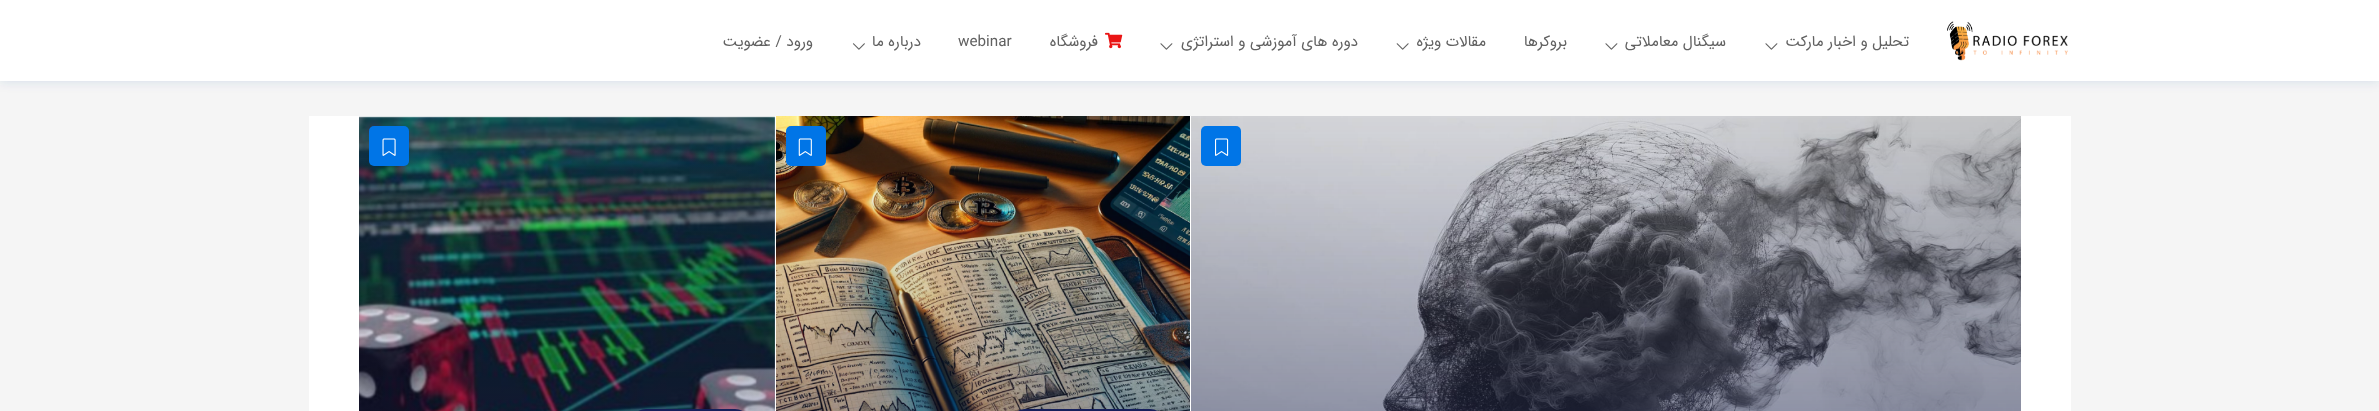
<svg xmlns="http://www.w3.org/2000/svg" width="2379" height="411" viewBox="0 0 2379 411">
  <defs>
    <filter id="blur1" x="-50%" y="-200%" width="200%" height="500%"><feGaussianBlur stdDeviation="6"/></filter>
    <linearGradient id="g1" gradientUnits="userSpaceOnUse" x1="567" y1="116" x2="567" y2="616"><stop offset="0" stop-color="#16205b" stop-opacity="0"/><stop offset="1" stop-color="#16205b" stop-opacity="0.5"/></linearGradient>
  </defs>
  <rect width="100%" height="100%" fill="#f5f5f5"/>
  <rect x="0" y="0" width="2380" height="81" fill="#1c4c9c" fill-opacity="0.15" filter="url(#blur1)"/>
  <rect x="0" y="0" width="2379" height="81" fill="#ffffff"/>
  <image x="1947" y="21" width="121" height="40" href="img1.png"/>
  <text x="1909" y="46" font-family="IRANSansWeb" font-size="15.25" direction="rtl" fill="#616161">تحلیل و اخبار مارکت</text>
  <image x="1765" y="43" width="13" height="7" href="img2.png"/>
  <text x="1726" y="46" font-family="IRANSansWeb" font-size="15.25" direction="rtl" fill="#616161">سیگنال معاملاتی</text>
  <image x="1605" y="43" width="13" height="7" href="img2.png"/>
  <text x="1567" y="46" font-family="IRANSansWeb" font-size="15.25" direction="rtl" fill="#616161">بروکرها</text>
  <text x="1486" y="46" font-family="IRANSansWeb" font-size="15.25" direction="rtl" fill="#616161">مقالات ویژه</text>
  <image x="1396" y="43" width="13" height="7" href="img3.png"/>
  <text x="1358" y="46" font-family="IRANSansWeb" font-size="15.25" direction="rtl" fill="#616161">دوره های آموزشی و استراتژی</text>
  <image x="1160" y="43" width="13" height="7" href="img2.png"/>
  <image x="1105" y="32" width="18" height="17" href="img4.png"/>
  <text x="1098" y="46" font-family="IRANSansWeb" font-size="15.25" direction="rtl" fill="#616161">فروشگاه</text>
  <text x="958" y="46" font-family="IRANSansWeb" font-size="15.25" fill="#616161">webinar</text>
  <text x="921" y="46" font-family="IRANSansWeb" font-size="15.25" direction="rtl" fill="#616161">درباره ما</text>
  <image x="852" y="43" width="13" height="7" href="img5.png"/>
  <text x="813" y="46" font-family="IRANSansWeb" font-size="15.25" direction="rtl" fill="#616161">ورود / عضویت</text>
  <rect x="309" y="116" width="1762" height="295" fill="#ffffff"/>
  <image x="1191" y="116" width="830" height="295" href="img6.png"/>
  <rect x="1201" y="126" width="40" height="40" rx="5" fill="#0075e7"/>
  <image x="1215" y="138" width="14" height="18" href="img7.png"/>
  <image x="776" y="116" width="414" height="295" href="img8.png"/>
  <rect x="786" y="126" width="40" height="40" rx="5" fill="#0075e7"/>
  <image x="798" y="138" width="14" height="18" href="img9.png"/>
  <rect x="1015" y="409" width="145" height="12" rx="10" fill="#16205b"/>
  <image x="359" y="116" width="416" height="295" href="img10.png"/>
  <rect x="359" y="145" width="416" height="266" fill="url(#g1)"/>
  <rect x="369" y="126" width="40" height="40" rx="5" fill="#0075e7"/>
  <image x="382" y="138" width="14" height="18" href="img11.png"/>
  <rect x="636" y="409" width="109" height="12" rx="10" fill="#16205b"/>
</svg>
